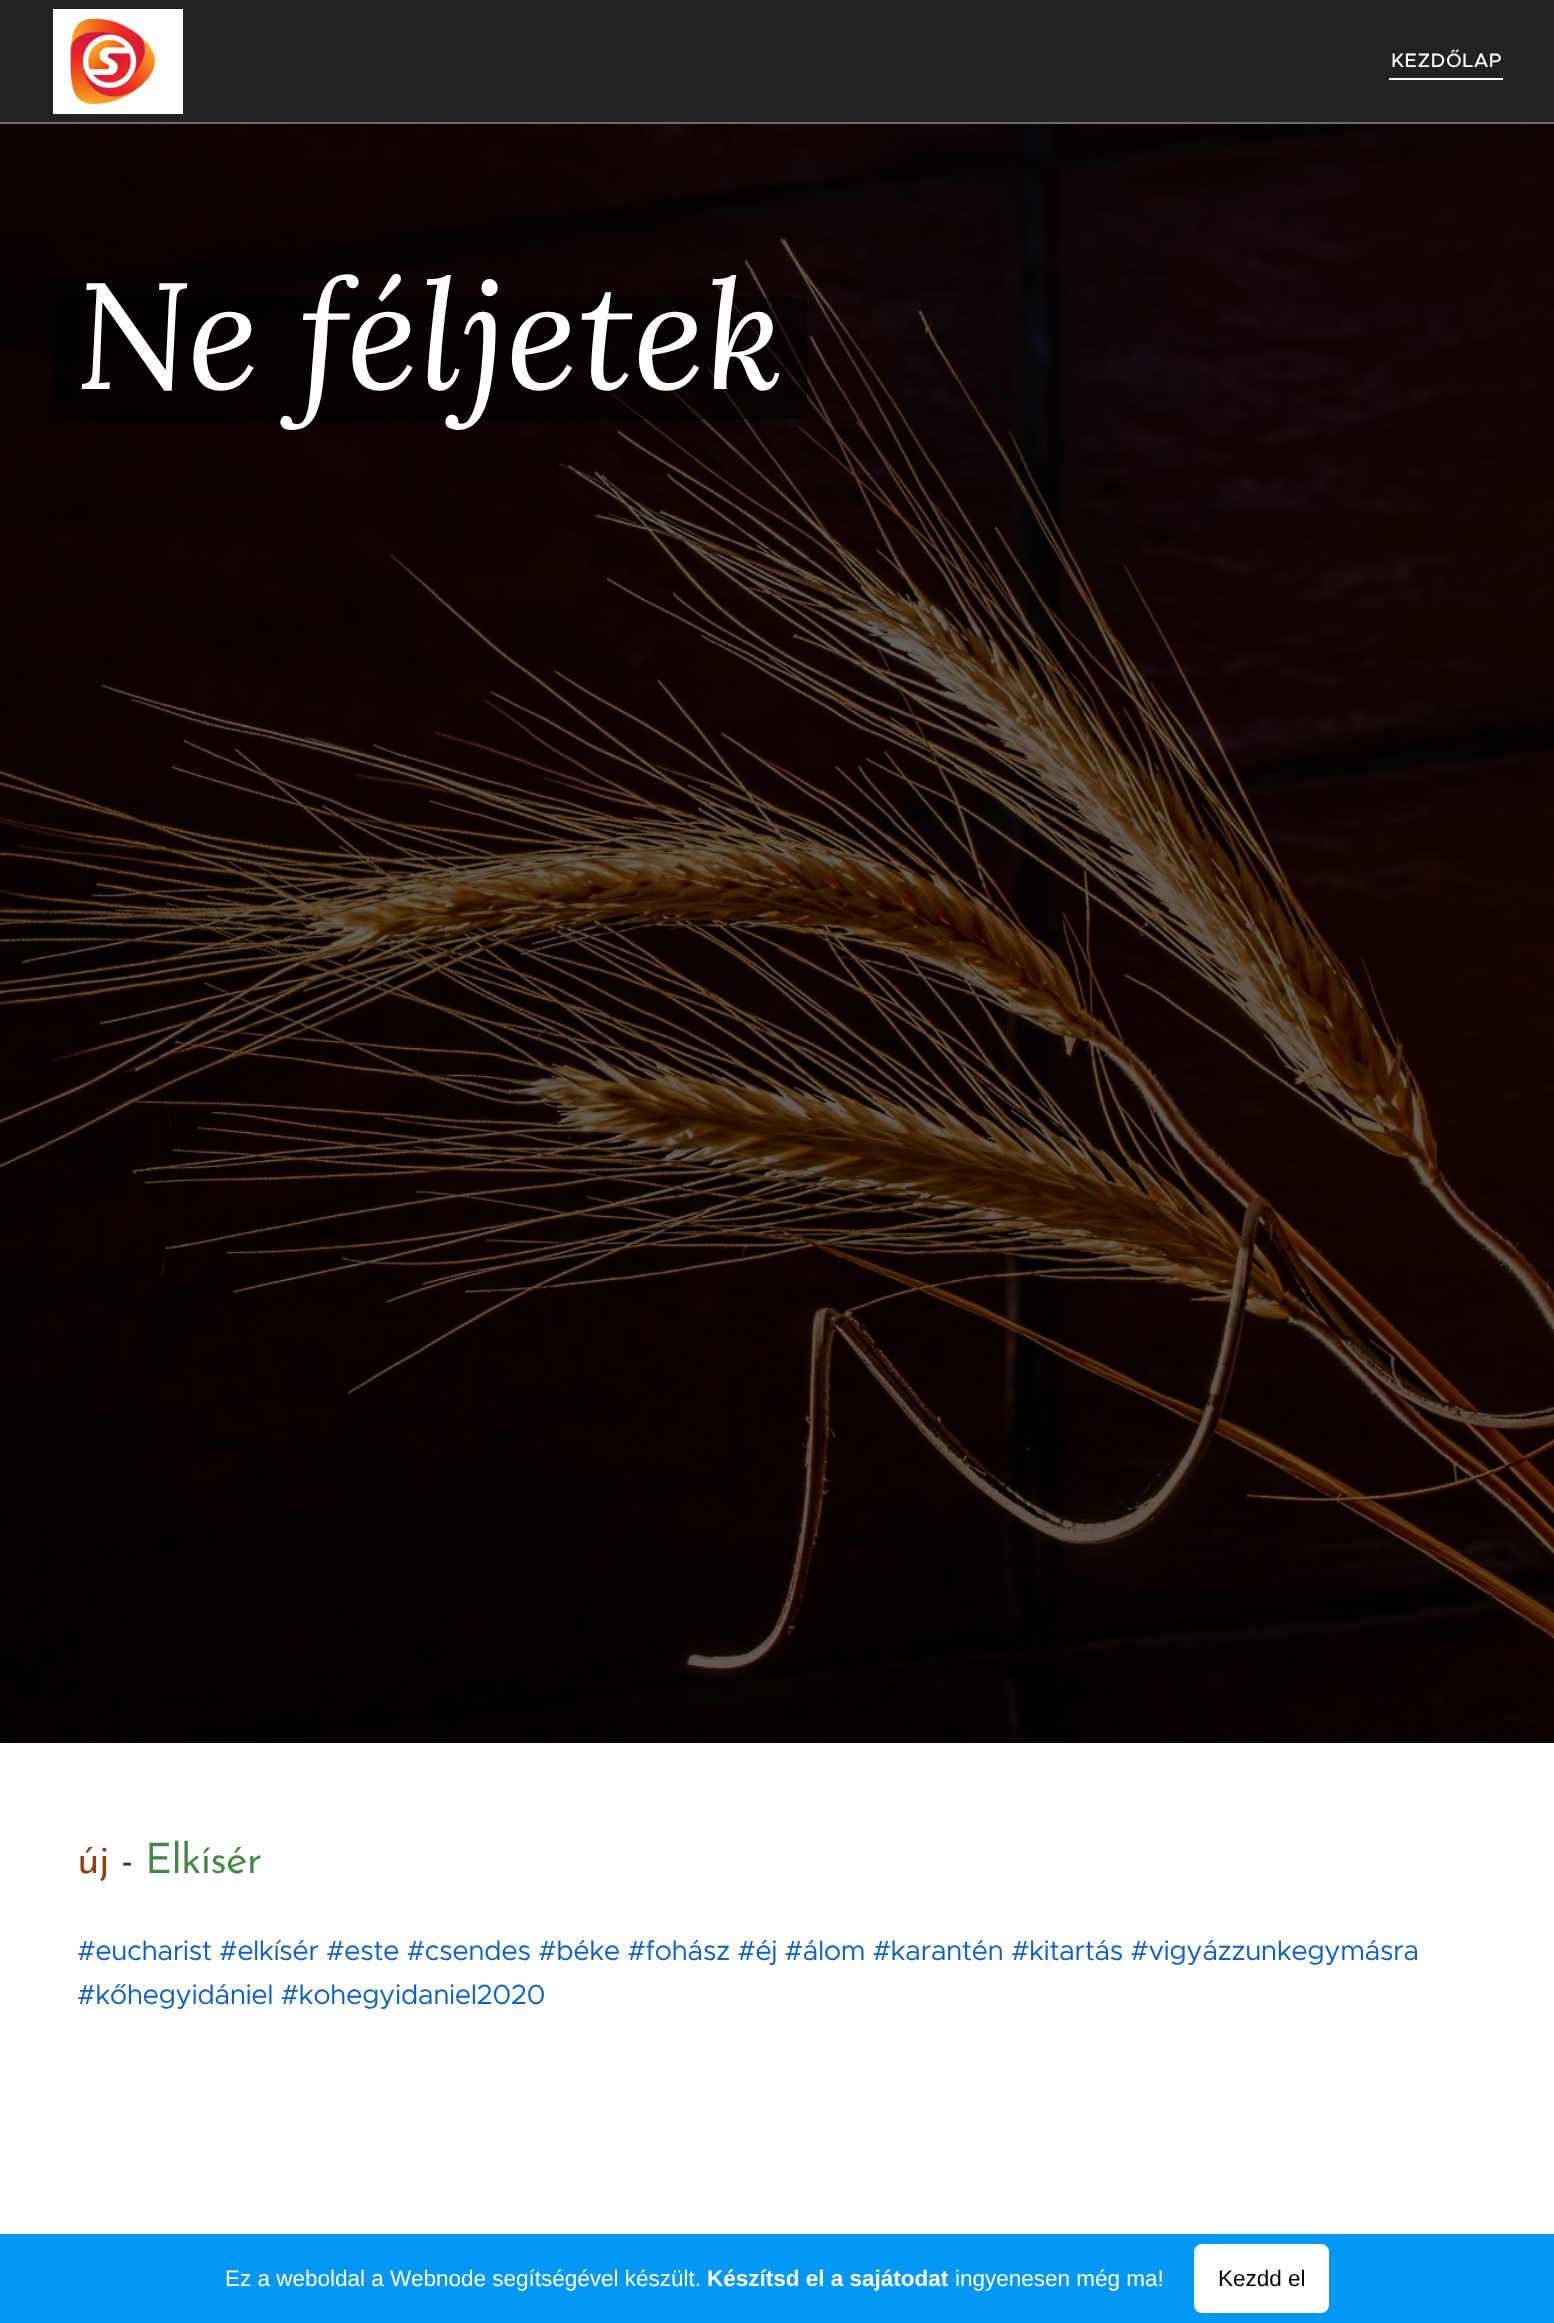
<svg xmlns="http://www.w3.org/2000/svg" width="1554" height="2323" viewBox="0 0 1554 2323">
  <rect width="100%" height="100%" fill="#ffffff"/>
  <rect x="0" y="0" width="1554" height="122" fill="#222222"/>
  <rect x="53" y="9" width="130" height="105" fill="#ffffff"/>
  <image x="70" y="18" width="86" height="87" href="img1.png"/>
  <text x="1391" y="67" font-family="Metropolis" font-size="19.5" font-weight="500" letter-spacing="0.5" fill="#ffffff">KEZDŐLAP</text>
  <rect x="1389" y="78" width="114" height="2" fill="#ffffff"/>
  <rect x="0" y="122" width="1554" height="2" fill="#6e6e6e"/>
  <image x="0" y="124" width="1554" height="1619" href="img2.png"/>
  <path d="M53 297V419H762V418H75V297Z" fill="#000000" fill-opacity="0.5"/>
  <path d="M98 418V419H807V297H784V418Z" fill="#000000" fill-opacity="0.5"/>
  <rect x="75" y="297" width="710" height="122" fill="#000000" fill-opacity="0.5"/>
  <text x="75" y="389" font-family="Lora" font-size="151" font-style="italic" fill="#ffffff">Ne féljetek</text>
  <text x="77" y="1873" font-family="Josefin Sans" font-size="42" letter-spacing="-0.75" fill="#973b0c">új</text>
  <text x="121" y="1873" font-family="Josefin Sans" font-size="42" letter-spacing="-0.75" fill="#393939">-</text>
  <text x="145" y="1873" font-family="Josefin Sans" font-size="42" letter-spacing="-0.75" fill="#468747">Elkísér</text>
  <text x="77" y="1960" font-family="Metropolis" font-size="27.75" letter-spacing="-0.55" fill="#0e60c6">#eucharist #elkísér #este #csendes #béke #fohász #éj #álom #karantén #kitartás #vigyázzunkegymásra</text>
  <text x="77" y="2004" font-family="Metropolis" font-size="27.75" letter-spacing="-0.55" fill="#0e60c6">#kőhegyidániel #kohegyidaniel2020</text>
  <rect x="0" y="2234" width="1554" height="89" fill="#0097f5"/>
  <text x="225" y="2286" font-family="Liberation Sans" font-size="22.5" fill="#ffffff">Ez a weboldal a Webnode segítségével készült.</text>
  <text x="707" y="2286" font-family="Liberation Sans" font-size="22.5" font-weight="bold" fill="#ffffff">Készítsd el a sajátodat</text>
  <text x="955" y="2286" font-family="Liberation Sans" font-size="22.5" fill="#ffffff">ingyenesen még ma!</text>
  <rect x="1194" y="2244" width="135" height="69" rx="8" fill="#ffffff"/>
  <text x="1218" y="2286" font-family="Liberation Sans" font-size="22.5" fill="#000000">Kezdd el</text>
</svg>
